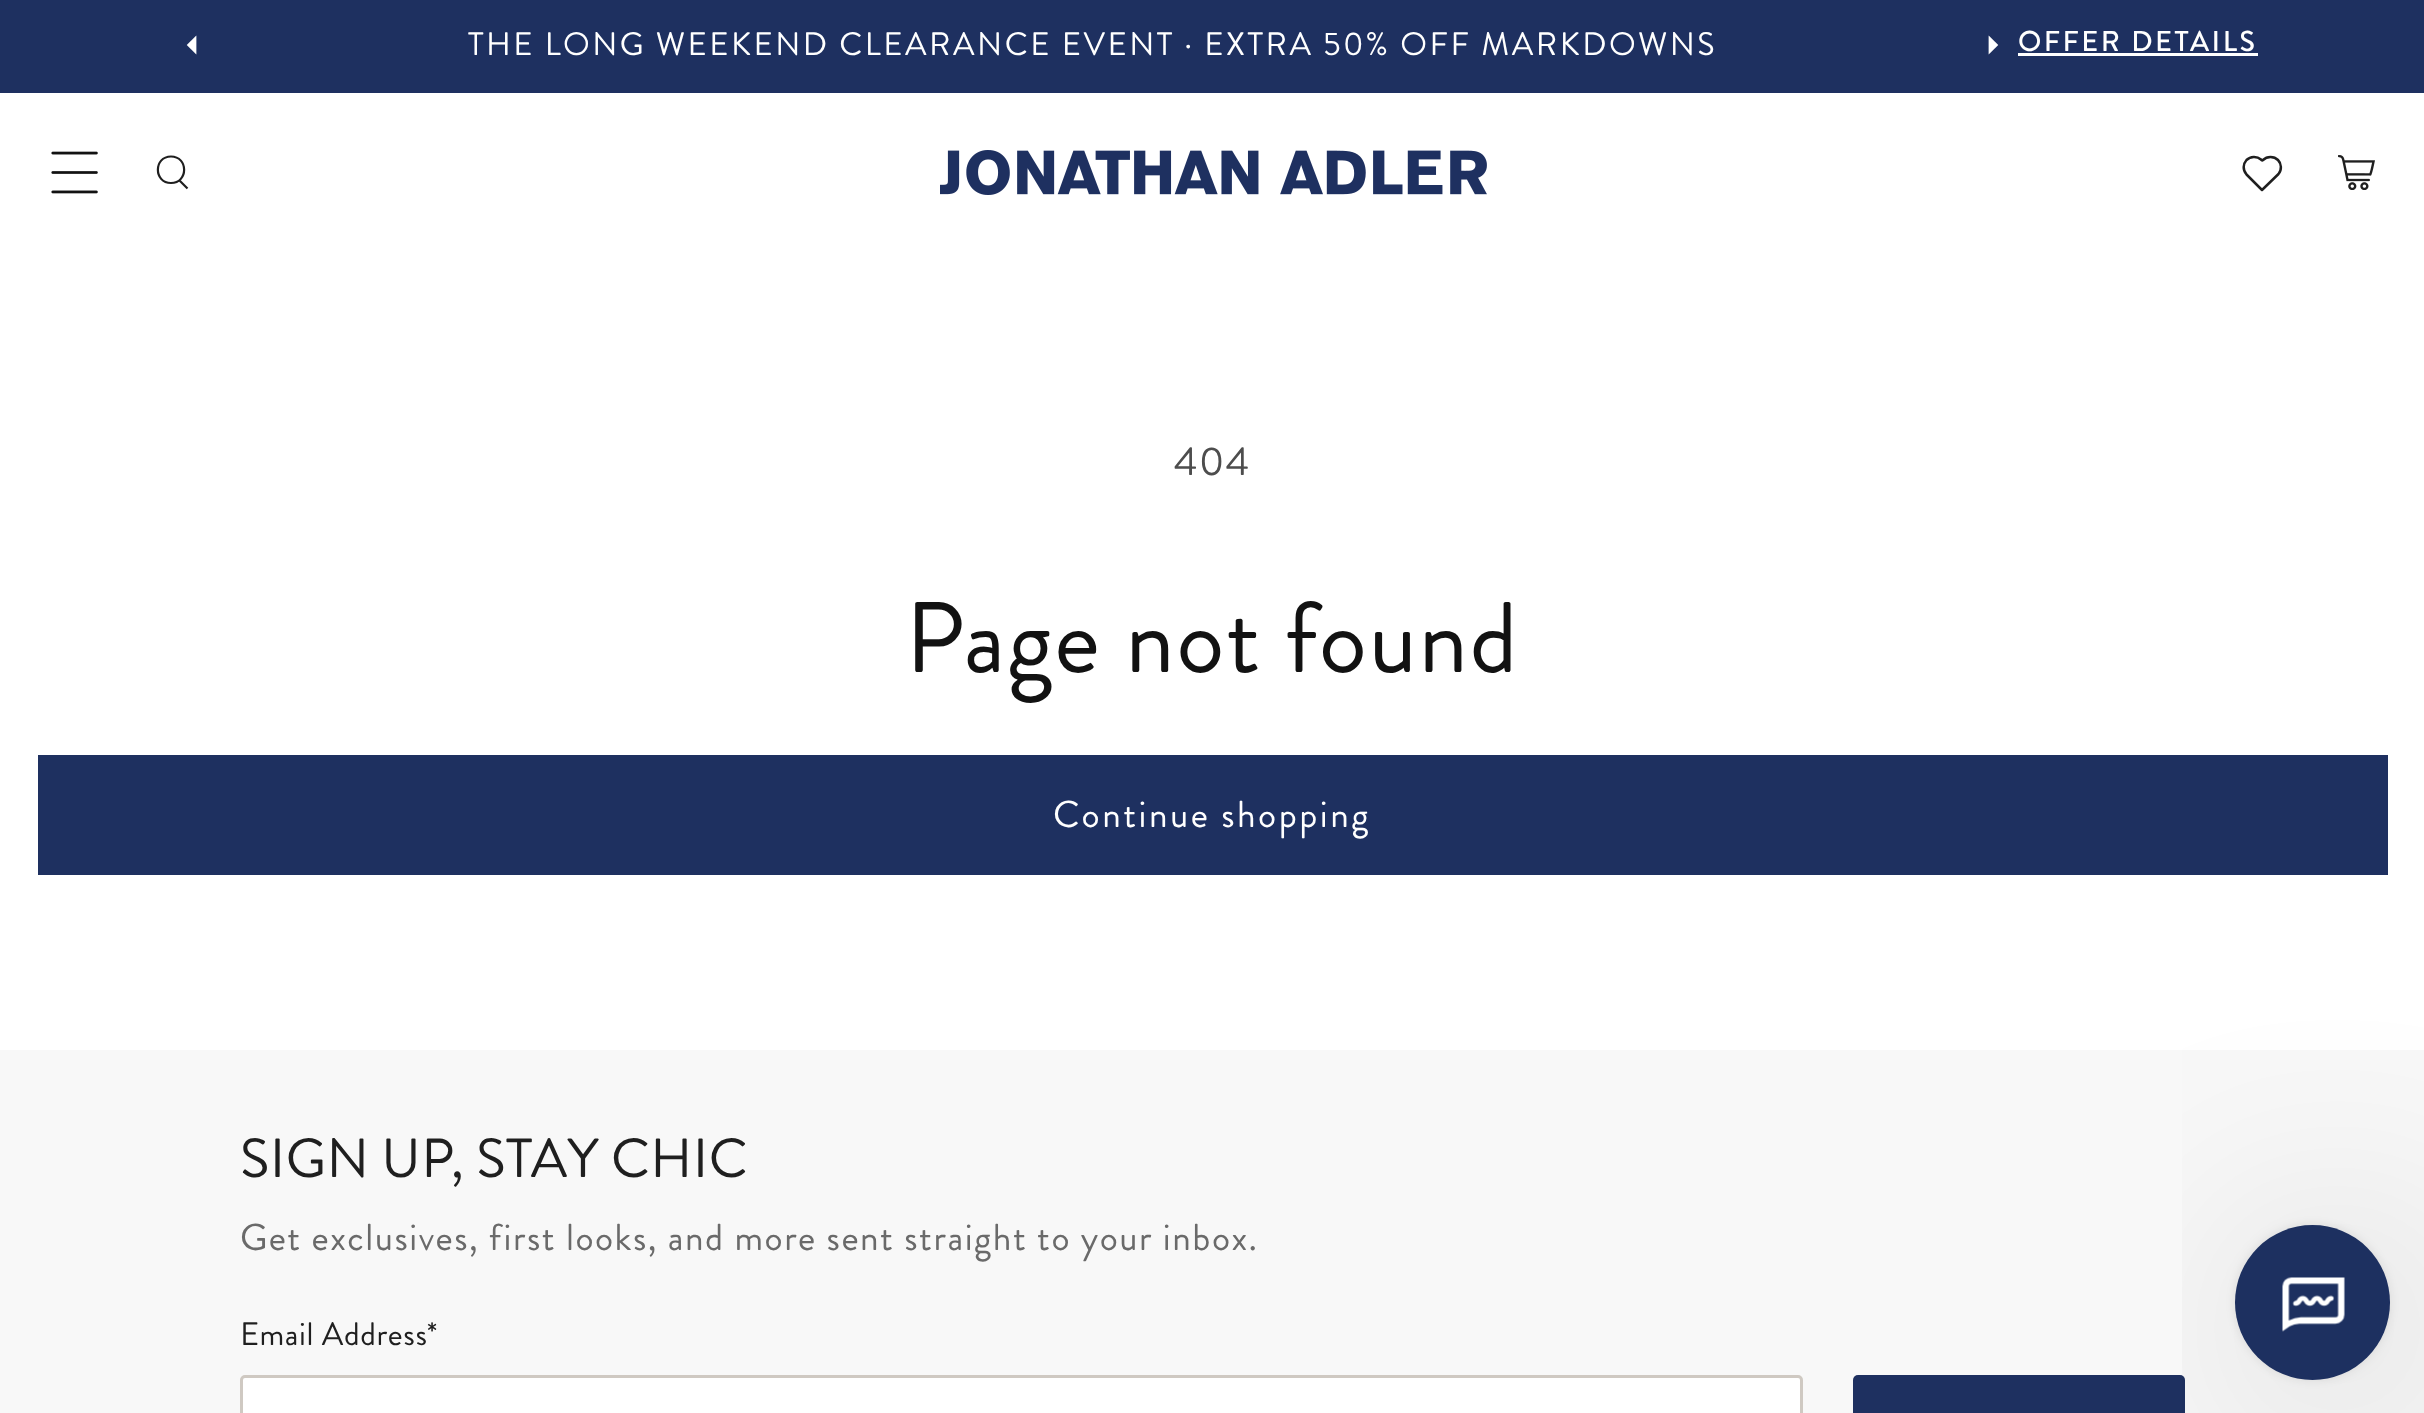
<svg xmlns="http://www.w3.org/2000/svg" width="2424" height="1413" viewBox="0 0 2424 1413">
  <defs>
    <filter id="blur1" x="-50%" y="-200%" width="200%" height="500%"><feGaussianBlur stdDeviation="5"/></filter>
    <filter id="blur2" x="-50%" y="-200%" width="200%" height="500%"><feGaussianBlur stdDeviation="125"/></filter>
  </defs>
  <rect width="100%" height="100%" fill="#ffffff"/>
  <rect x="0" y="0" width="2424" height="93" fill="#1e3060"/>
  <image x="186" y="35" width="11" height="20" href="img1.png"/>
  <text x="468" y="55" font-family="Brandon Grotesque" font-size="32.5" letter-spacing="2.5" fill="#ffffff">THE LONG WEEKEND CLEARANCE EVENT · EXTRA 50% OFF MARKDOWNS</text>
  <image x="1988" y="35" width="11" height="20" href="img2.png"/>
  <text x="2018" y="51" font-family="Brandon Grotesque" font-size="28.75" font-weight="500" letter-spacing="2.5" fill="#ffffff">OFFER DETAILS</text>
  <rect x="2018" y="53" width="240" height="3" fill="#ffffff"/>
  <image x="51" y="151" width="47" height="43" href="img3.png"/>
  <path d="M179.5 180.5L187.5 188.5M171 183C188.5 183 188.5 156.5 171 156.5C153.5 156.5 153.5 183 171 183Z" fill="none" stroke="#1f1f1f" stroke-width="2.2" stroke-linejoin="round"/>
  <image x="940" y="150" width="547" height="45" href="img4.png"/>
  <path d="M2246.5 160C2250.5 156 2257 156 2261 159.5L2261.5 160C2262 160.5 2262.5 160.5 2263 160C2267 156 2274 156 2278 160C2281.5 163.5 2282 170 2278.5 174L2262 190L2246.5 174.5C2242.5 170 2243 164 2246.5 160Z" fill="none" stroke="#1f1f1f" stroke-width="2.5" stroke-linecap="round" stroke-linejoin="round"/>
  <image x="2338" y="155" width="37" height="35" href="img5.png"/>
  <text x="1174" y="475" font-family="Brandon Grotesque" font-size="40" letter-spacing="1.5" fill="#4d4d4d">404</text>
  <text x="905" y="672" font-family="Brandon Grotesque" font-size="100" letter-spacing="1.5" fill="#121212">Page not found</text>
  <rect x="38" y="755" width="2350" height="120" fill="#1e3060"/>
  <text x="1053" y="827" font-family="Brandon Grotesque" font-size="37.5" letter-spacing="2.5" fill="#ffffff">Continue shopping</text>
  <rect x="0" y="1050" width="2424" height="363" fill="#f8f8f8"/>
  <text x="240" y="1177" word-spacing="-1" font-family="Brandon Grotesque" font-size="55" letter-spacing="0.5" fill="#1f1f1f">SIGN UP, STAY CHIC</text>
  <text x="240" y="1250" font-family="Brandon Grotesque" font-size="37.5" letter-spacing="1.5" fill="#6a6a6a">Get exclusives, first looks, and more sent straight to your inbox.</text>
  <text x="240" y="1345" font-family="Brandon Grotesque" font-size="32.5" letter-spacing="0.6" fill="#1f1f1f">Email Address*</text>
  <rect x="241.5" y="1376.5" width="1560" height="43" rx="3.5" fill="#ffffff" stroke="#cfc9c2" stroke-width="3"/>
  <rect x="1853" y="1375" width="332" height="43" rx="5" fill="#1e3060"/>
  <rect x="2235" y="1225" width="155" height="155" rx="77.5" fill="#000000" fill-opacity="0.1" filter="url(#blur1)"/>
  <rect x="2260" y="1250" width="155" height="155" rx="77.5" fill="#000000" fill-opacity="0.25" filter="url(#blur2)"/>
  <image x="2235" y="1225" width="155" height="155" href="img6.png"/>
</svg>
